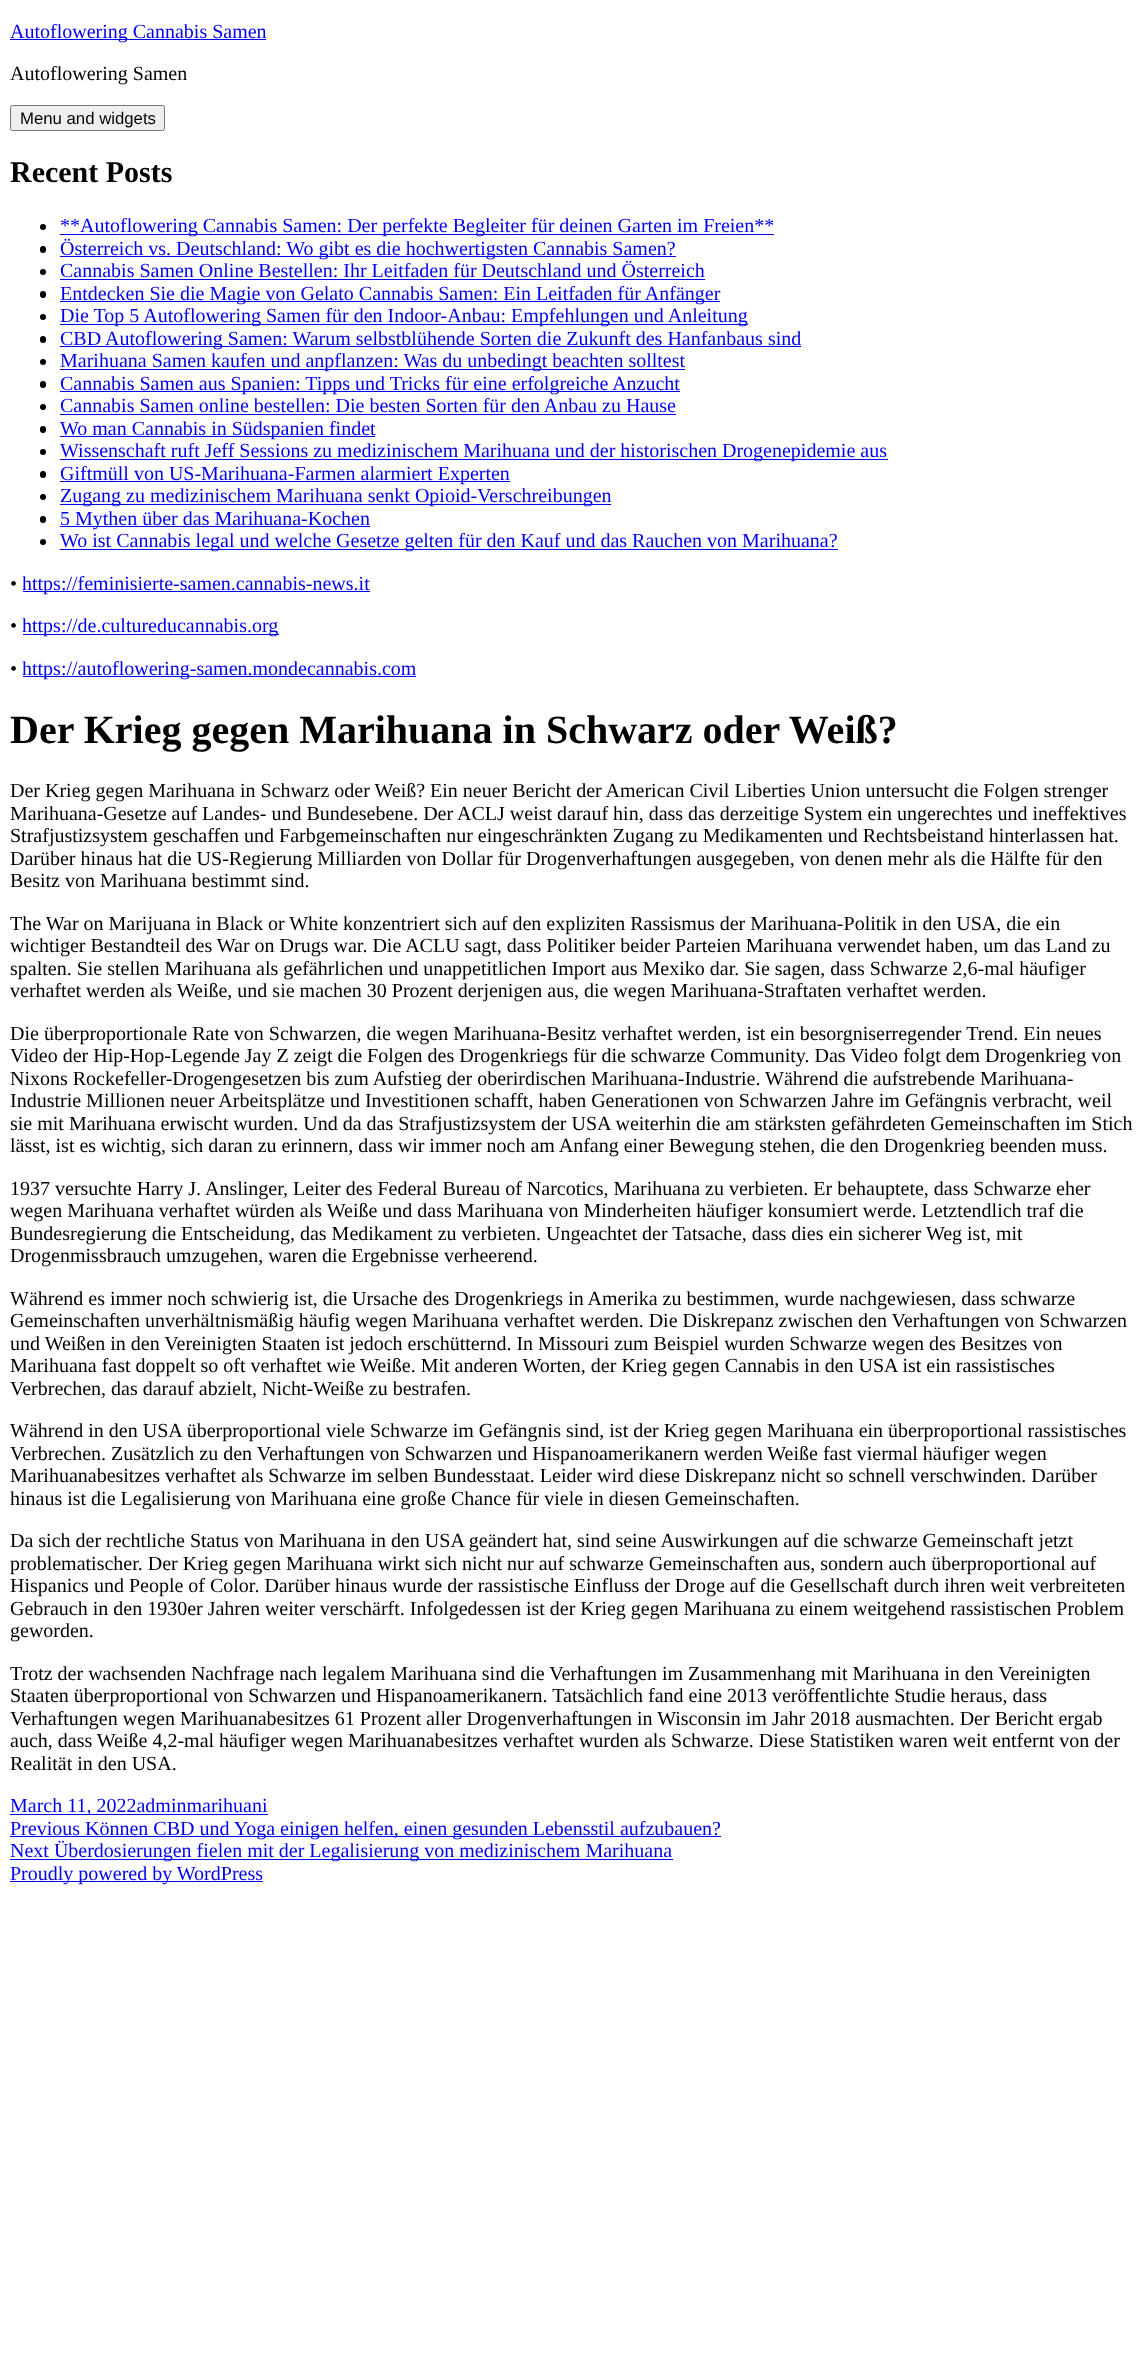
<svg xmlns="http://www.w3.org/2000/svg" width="1145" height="2372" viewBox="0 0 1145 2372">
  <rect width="100%" height="100%" fill="#ffffff"/>
  <rect x="10" y="39" width="256" height="1" fill="#0000ee"/>
  <text x="10" y="38" font-family="Liberation Serif" font-size="20" fill="#0000ee">Autoflowering Cannabis Samen</text>
  <text x="10" y="80" font-family="Liberation Serif" font-size="20" fill="#000000">Autoflowering Samen</text>
  <rect x="10.5" y="105.5" width="154" height="25" rx="2" fill="#efefef" stroke="#767676"/>
  <text x="20" y="124" font-family="Liberation Sans" font-size="16.75" fill="#000000">Menu and widgets</text>
  <text x="10" y="182" font-family="Liberation Serif" font-size="30" font-weight="bold" fill="#000000">Recent Posts</text>
  <circle cx="43" cy="227" r="3" fill="#000000"/>
  <rect x="60" y="234" width="714" height="1" fill="#0000ee"/>
  <text x="60" y="232" font-family="Liberation Serif" font-size="20" fill="#0000ee">**Autoflowering Cannabis Samen: Der perfekte Begleiter für deinen Garten im Freien**</text>
  <rect x="40" y="246" width="6" height="7" rx="3" fill="#000000"/>
  <rect x="60" y="256" width="616" height="1" fill="#0000ee"/>
  <text x="60" y="255" font-family="Liberation Serif" font-size="20" fill="#0000ee">Österreich vs. Deutschland: Wo gibt es die hochwertigsten Cannabis Samen?</text>
  <circle cx="43" cy="272" r="3" fill="#000000"/>
  <text x="60" y="277" font-family="Liberation Serif" font-size="20" fill="#0000ee">Cannabis Samen Online Bestellen: Ihr Leitfaden für Deutschland und Österreich</text>
  <rect x="60" y="279" width="645" height="1" fill="#0000ee"/>
  <rect x="40" y="291" width="6" height="7" rx="3" fill="#000000"/>
  <rect x="60" y="301" width="660" height="1" fill="#0000ee"/>
  <text x="60" y="300" font-family="Liberation Serif" font-size="20" fill="#0000ee">Entdecken Sie die Magie von Gelato Cannabis Samen: Ein Leitfaden für Anfänger</text>
  <circle cx="43" cy="317" r="3" fill="#000000"/>
  <rect x="60" y="324" width="688" height="1" fill="#0000ee"/>
  <text x="60" y="322" font-family="Liberation Serif" font-size="20" fill="#0000ee">Die Top 5 Autoflowering Samen für den Indoor-Anbau: Empfehlungen und Anleitung</text>
  <rect x="40" y="336" width="6" height="7" rx="3" fill="#000000"/>
  <rect x="60" y="346" width="741" height="1" fill="#0000ee"/>
  <text x="60" y="345" font-family="Liberation Serif" font-size="20" fill="#0000ee">CBD Autoflowering Samen: Warum selbstblühende Sorten die Zukunft des Hanfanbaus sind</text>
  <circle cx="43" cy="362" r="3" fill="#000000"/>
  <rect x="60" y="369" width="625" height="1" fill="#0000ee"/>
  <text x="60" y="367" font-family="Liberation Serif" font-size="20" fill="#0000ee">Marihuana Samen kaufen und anpflanzen: Was du unbedingt beachten solltest</text>
  <rect x="40" y="381" width="6" height="7" rx="3" fill="#000000"/>
  <rect x="60" y="391" width="620" height="1" fill="#0000ee"/>
  <text x="60" y="390" font-family="Liberation Serif" font-size="20" fill="#0000ee">Cannabis Samen aus Spanien: Tipps und Tricks für eine erfolgreiche Anzucht</text>
  <circle cx="43" cy="407" r="3" fill="#000000"/>
  <text x="60" y="412" font-family="Liberation Serif" font-size="20" fill="#0000ee">Cannabis Samen online bestellen: Die besten Sorten für den Anbau zu Hause</text>
  <rect x="60" y="414" width="616" height="1" fill="#0000ee"/>
  <rect x="40" y="426" width="6" height="7" rx="3" fill="#000000"/>
  <rect x="60" y="436" width="315" height="1" fill="#0000ee"/>
  <text x="60" y="435" font-family="Liberation Serif" font-size="20" fill="#0000ee">Wo man Cannabis in Südspanien findet</text>
  <circle cx="43" cy="452" r="3" fill="#000000"/>
  <rect x="60" y="459" width="828" height="1" fill="#0000ee"/>
  <text x="60" y="457" font-family="Liberation Serif" font-size="20" fill="#0000ee">Wissenschaft ruft Jeff Sessions zu medizinischem Marihuana und der historischen Drogenepidemie aus</text>
  <rect x="40" y="471" width="6" height="7" rx="3" fill="#000000"/>
  <rect x="60" y="481" width="450" height="1" fill="#0000ee"/>
  <text x="60" y="480" font-family="Liberation Serif" font-size="20" fill="#0000ee">Giftmüll von US-Marihuana-Farmen alarmiert Experten</text>
  <circle cx="43" cy="497" r="3" fill="#000000"/>
  <rect x="60" y="504" width="551" height="1" fill="#0000ee"/>
  <text x="60" y="502" font-family="Liberation Serif" font-size="20" fill="#0000ee">Zugang zu medizinischem Marihuana senkt Opioid-Verschreibungen</text>
  <rect x="40" y="516" width="6" height="7" rx="3" fill="#000000"/>
  <rect x="60" y="526" width="310" height="1" fill="#0000ee"/>
  <text x="60" y="525" font-family="Liberation Serif" font-size="20" fill="#0000ee">5 Mythen über das Marihuana-Kochen</text>
  <circle cx="43" cy="542" r="3" fill="#000000"/>
  <rect x="60" y="549" width="778" height="1" fill="#0000ee"/>
  <text x="60" y="547" font-family="Liberation Serif" font-size="20" fill="#0000ee">Wo ist Cannabis legal und welche Gesetze gelten für den Kauf und das Rauchen von Marihuana?</text>
  <text x="10" y="590" font-family="Liberation Serif" font-size="20" fill="#000000">•</text>
  <rect x="23" y="591" width="347" height="1" fill="#0000ee"/>
  <text x="22" y="590" font-family="Liberation Serif" font-size="20" fill="#0000ee">https://feminisierte-samen.cannabis-news.it</text>
  <text x="10" y="632" font-family="Liberation Serif" font-size="20" fill="#000000">•</text>
  <rect x="23" y="634" width="256" height="1" fill="#0000ee"/>
  <text x="22" y="632" font-family="Liberation Serif" font-size="20" fill="#0000ee">https://de.cultureducannabis.org</text>
  <text x="10" y="675" font-family="Liberation Serif" font-size="20" fill="#000000">•</text>
  <rect x="23" y="676" width="393" height="1" fill="#0000ee"/>
  <text x="22" y="675" font-family="Liberation Serif" font-size="20" fill="#0000ee">https://autoflowering-samen.mondecannabis.com</text>
  <text x="10" y="743" font-family="Liberation Serif" font-size="40" font-weight="bold" fill="#000000">Der Krieg gegen Marihuana in Schwarz oder Weiß?</text>
  <text x="10" y="797" font-family="Liberation Serif" font-size="20" fill="#000000">Der Krieg gegen Marihuana in Schwarz oder Weiß? Ein neuer Bericht der American Civil Liberties Union untersucht die Folgen strenger</text>
  <text x="10" y="820" font-family="Liberation Serif" font-size="20" fill="#000000">Marihuana-Gesetze auf Landes- und Bundesebene. Der ACLJ weist darauf hin, dass das derzeitige System ein ungerechtes und ineffektives</text>
  <text x="10" y="842" font-family="Liberation Serif" font-size="20" fill="#000000">Strafjustizsystem geschaffen und Farbgemeinschaften nur eingeschränkten Zugang zu Medikamenten und Rechtsbeistand hinterlassen hat.</text>
  <text x="10" y="865" font-family="Liberation Serif" font-size="20" fill="#000000">Darüber hinaus hat die US-Regierung Milliarden von Dollar für Drogenverhaftungen ausgegeben, von denen mehr als die Hälfte für den</text>
  <text x="10" y="887" font-family="Liberation Serif" font-size="20" fill="#000000">Besitz von Marihuana bestimmt sind.</text>
  <text x="10" y="930" font-family="Liberation Serif" font-size="20" fill="#000000">The War on Marijuana in Black or White konzentriert sich auf den expliziten Rassismus der Marihuana-Politik in den USA, die ein</text>
  <text x="10" y="952" font-family="Liberation Serif" font-size="20" fill="#000000">wichtiger Bestandteil des War on Drugs war. Die ACLU sagt, dass Politiker beider Parteien Marihuana verwendet haben, um das Land zu</text>
  <text x="10" y="975" font-family="Liberation Serif" font-size="20" fill="#000000">spalten. Sie stellen Marihuana als gefährlichen und unappetitlichen Import aus Mexiko dar. Sie sagen, dass Schwarze 2,6-mal häufiger</text>
  <text x="10" y="997" font-family="Liberation Serif" font-size="20" fill="#000000">verhaftet werden als Weiße, und sie machen 30 Prozent derjenigen aus, die wegen Marihuana-Straftaten verhaftet werden.</text>
  <text x="10" y="1040" font-family="Liberation Serif" font-size="20" fill="#000000">Die überproportionale Rate von Schwarzen, die wegen Marihuana-Besitz verhaftet werden, ist ein besorgniserregender Trend. Ein neues</text>
  <text x="10" y="1062" font-family="Liberation Serif" font-size="20" fill="#000000">Video der Hip-Hop-Legende Jay Z zeigt die Folgen des Drogenkriegs für die schwarze Community. Das Video folgt dem Drogenkrieg von</text>
  <text x="10" y="1085" font-family="Liberation Serif" font-size="20" fill="#000000">Nixons Rockefeller-Drogengesetzen bis zum Aufstieg der oberirdischen Marihuana-Industrie. Während die aufstrebende Marihuana-</text>
  <text x="10" y="1107" font-family="Liberation Serif" font-size="20" fill="#000000">Industrie Millionen neuer Arbeitsplätze und Investitionen schafft, haben Generationen von Schwarzen Jahre im Gefängnis verbracht, weil</text>
  <text x="10" y="1130" font-family="Liberation Serif" font-size="20" fill="#000000">sie mit Marihuana erwischt wurden. Und da das Strafjustizsystem der USA weiterhin die am stärksten gefährdeten Gemeinschaften im Stich</text>
  <text x="10" y="1152" font-family="Liberation Serif" font-size="20" fill="#000000">lässt, ist es wichtig, sich daran zu erinnern, dass wir immer noch am Anfang einer Bewegung stehen, die den Drogenkrieg beenden muss.</text>
  <text x="10" y="1195" font-family="Liberation Serif" font-size="20" fill="#000000">1937 versuchte Harry J. Anslinger, Leiter des Federal Bureau of Narcotics, Marihuana zu verbieten. Er behauptete, dass Schwarze eher</text>
  <text x="10" y="1217" font-family="Liberation Serif" font-size="20" fill="#000000">wegen Marihuana verhaftet würden als Weiße und dass Marihuana von Minderheiten häufiger konsumiert werde. Letztendlich traf die</text>
  <text x="10" y="1240" font-family="Liberation Serif" font-size="20" fill="#000000">Bundesregierung die Entscheidung, das Medikament zu verbieten. Ungeachtet der Tatsache, dass dies ein sicherer Weg ist, mit</text>
  <text x="10" y="1262" font-family="Liberation Serif" font-size="20" fill="#000000">Drogenmissbrauch umzugehen, waren die Ergebnisse verheerend.</text>
  <text x="10" y="1305" font-family="Liberation Serif" font-size="20" fill="#000000">Während es immer noch schwierig ist, die Ursache des Drogenkriegs in Amerika zu bestimmen, wurde nachgewiesen, dass schwarze</text>
  <text x="10" y="1327" font-family="Liberation Serif" font-size="20" fill="#000000">Gemeinschaften unverhältnismäßig häufig wegen Marihuana verhaftet werden. Die Diskrepanz zwischen den Verhaftungen von Schwarzen</text>
  <text x="10" y="1350" font-family="Liberation Serif" font-size="20" fill="#000000">und Weißen in den Vereinigten Staaten ist jedoch erschütternd. In Missouri zum Beispiel wurden Schwarze wegen des Besitzes von</text>
  <text x="10" y="1372" font-family="Liberation Serif" font-size="20" fill="#000000">Marihuana fast doppelt so oft verhaftet wie Weiße. Mit anderen Worten, der Krieg gegen Cannabis in den USA ist ein rassistisches</text>
  <text x="10" y="1395" font-family="Liberation Serif" font-size="20" fill="#000000">Verbrechen, das darauf abzielt, Nicht-Weiße zu bestrafen.</text>
  <text x="10" y="1437" font-family="Liberation Serif" font-size="20" fill="#000000">Während in den USA überproportional viele Schwarze im Gefängnis sind, ist der Krieg gegen Marihuana ein überproportional rassistisches</text>
  <text x="10" y="1460" font-family="Liberation Serif" font-size="20" fill="#000000">Verbrechen. Zusätzlich zu den Verhaftungen von Schwarzen und Hispanoamerikanern werden Weiße fast viermal häufiger wegen</text>
  <text x="10" y="1482" font-family="Liberation Serif" font-size="20" fill="#000000">Marihuanabesitzes verhaftet als Schwarze im selben Bundesstaat. Leider wird diese Diskrepanz nicht so schnell verschwinden. Darüber</text>
  <text x="10" y="1505" font-family="Liberation Serif" font-size="20" fill="#000000">hinaus ist die Legalisierung von Marihuana eine große Chance für viele in diesen Gemeinschaften.</text>
  <text x="10" y="1547" font-family="Liberation Serif" font-size="20" fill="#000000">Da sich der rechtliche Status von Marihuana in den USA geändert hat, sind seine Auswirkungen auf die schwarze Gemeinschaft jetzt</text>
  <text x="10" y="1570" font-family="Liberation Serif" font-size="20" fill="#000000">problematischer. Der Krieg gegen Marihuana wirkt sich nicht nur auf schwarze Gemeinschaften aus, sondern auch überproportional auf</text>
  <text x="10" y="1592" font-family="Liberation Serif" font-size="20" fill="#000000">Hispanics und People of Color. Darüber hinaus wurde der rassistische Einfluss der Droge auf die Gesellschaft durch ihren weit verbreiteten</text>
  <text x="10" y="1615" font-family="Liberation Serif" font-size="20" fill="#000000">Gebrauch in den 1930er Jahren weiter verschärft. Infolgedessen ist der Krieg gegen Marihuana zu einem weitgehend rassistischen Problem</text>
  <text x="10" y="1637" font-family="Liberation Serif" font-size="20" fill="#000000">geworden.</text>
  <text x="10" y="1680" font-family="Liberation Serif" font-size="20" fill="#000000">Trotz der wachsenden Nachfrage nach legalem Marihuana sind die Verhaftungen im Zusammenhang mit Marihuana in den Vereinigten</text>
  <text x="10" y="1702" font-family="Liberation Serif" font-size="20" fill="#000000">Staaten überproportional von Schwarzen und Hispanoamerikanern. Tatsächlich fand eine 2013 veröffentlichte Studie heraus, dass</text>
  <text x="10" y="1725" font-family="Liberation Serif" font-size="20" fill="#000000">Verhaftungen wegen Marihuanabesitzes 61 Prozent aller Drogenverhaftungen in Wisconsin im Jahr 2018 ausmachten. Der Bericht ergab</text>
  <text x="10" y="1747" font-family="Liberation Serif" font-size="20" fill="#000000">auch, dass Weiße 4,2-mal häufiger wegen Marihuanabesitzes verhaftet wurden als Schwarze. Diese Statistiken waren weit entfernt von der</text>
  <text x="10" y="1770" font-family="Liberation Serif" font-size="20" fill="#000000">Realität in den USA.</text>
  <rect x="10" y="1814" width="176" height="1" fill="#0000ee"/>
  <text x="10" y="1812" font-family="Liberation Serif" font-size="20" fill="#0000ee">March 11, 2022adminmarihuani</text>
  <rect x="186" y="1814" width="82" height="1" fill="#0000ee"/>
  <rect x="10" y="1836" width="711" height="1" fill="#0000ee"/>
  <text x="10" y="1835" font-family="Liberation Serif" font-size="20" fill="#0000ee">Previous Können CBD und Yoga einigen helfen, einen gesunden Lebensstil aufzubauen?</text>
  <rect x="10" y="1859" width="663" height="1" fill="#0000ee"/>
  <text x="10" y="1857" font-family="Liberation Serif" font-size="20" fill="#0000ee">Next Überdosierungen fielen mit der Legalisierung von medizinischem Marihuana</text>
  <rect x="10" y="1881" width="253" height="1" fill="#0000ee"/>
  <text x="10" y="1880" font-family="Liberation Serif" font-size="20" fill="#0000ee">Proudly powered by WordPress</text>
</svg>
